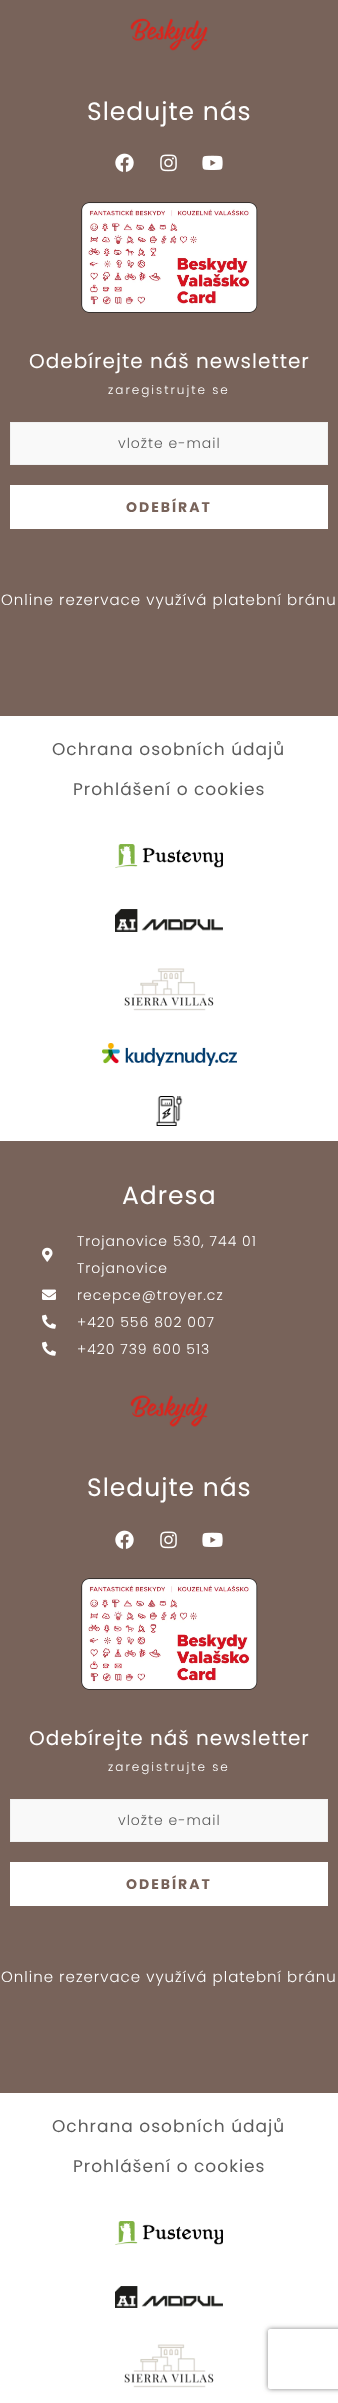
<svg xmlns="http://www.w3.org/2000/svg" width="338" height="2403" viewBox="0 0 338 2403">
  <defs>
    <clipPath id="clip1"><path d="M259 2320H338V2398H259ZM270 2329H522C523 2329 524 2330 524 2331V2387C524 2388 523 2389 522 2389H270C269 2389 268 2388 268 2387V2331C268 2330 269 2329 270 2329Z" clip-rule="evenodd"/></clipPath>
    <filter id="blur1" x="-50%" y="-200%" width="200%" height="500%"><feGaussianBlur stdDeviation="2.5"/></filter>
  </defs>
  <rect width="100%" height="100%" fill="#ffffff"/>
  <rect x="0" y="0" width="338" height="716" fill="#78635a"/>
  <image x="130" y="18" width="78" height="33" href="img1.png"/>
  <text x="87" y="120" font-family="Poppins" font-size="25" letter-spacing="1" fill="#ffffff">Sledujte nás</text>
  <image x="115" y="153" width="19" height="19" href="img2.png"/>
  <image x="160" y="154" width="17" height="18" href="img3.png"/>
  <image x="202" y="155" width="21" height="15" href="img4.png"/>
  <image x="81" y="202" width="177" height="111" href="img5.png"/>
  <text x="29" y="368" font-family="Poppins" font-size="20" letter-spacing="1" fill="#ffffff">Odebírejte náš newsletter</text>
  <text x="108" y="394" font-family="Poppins" font-size="12" font-weight="300" letter-spacing="2" fill="#ffffff">zaregistrujte se</text>
  <rect x="10.5" y="422.5" width="317" height="42" fill="#f9f9f9" stroke="#f1f1f1"/>
  <text x="118" y="448" font-family="Poppins" font-size="14" font-weight="300" letter-spacing="1" fill="#5c5c5c">vložte e-mail</text>
  <rect x="10" y="485" width="318" height="44" fill="#ffffff"/>
  <text x="126" y="512" font-family="Poppins" font-size="14" font-weight="bold" letter-spacing="2" fill="#78635a">ODEBÍRAT</text>
  <text x="1" y="605" font-family="Poppins" font-size="15" font-weight="300" letter-spacing="1" fill="#ffffff">Online rezervace využívá platební bránu</text>
  <text x="52" y="755" font-family="Poppins" font-size="17" letter-spacing="1" fill="#5c5c5c">Ochrana osobních údajů</text>
  <text x="73" y="795" font-family="Poppins" font-size="17" letter-spacing="1" fill="#5c5c5c">Prohlášení o cookies</text>
  <image x="115" y="844" width="108" height="24" href="img6.png"/>
  <image x="115" y="909" width="108" height="23" href="img7.png"/>
  <image x="124" y="968" width="90" height="43" href="img8.png"/>
  <image x="102" y="1043" width="135" height="23" href="img9.png"/>
  <image x="156" y="1096" width="27" height="30" href="img10.png"/>
  <rect x="0" y="1141" width="338" height="952" fill="#78635a"/>
  <text x="122" y="1204" font-family="Poppins" font-size="25" letter-spacing="1" fill="#ffffff">Adresa</text>
  <image x="42" y="1247" width="11" height="15" href="img11.png"/>
  <text x="77" y="1246" font-family="Poppins" font-size="14" font-weight="300" letter-spacing="1" fill="#ffffff">Trojanovice 530, 744 01</text>
  <text x="77" y="1273" font-family="Poppins" font-size="14" font-weight="300" letter-spacing="1" fill="#ffffff">Trojanovice</text>
  <image x="42" y="1289" width="14" height="11" href="img12.png"/>
  <text x="77" y="1300" font-family="Poppins" font-size="14" font-weight="300" letter-spacing="1" fill="#ffffff">recepce@troyer.cz</text>
  <image x="42" y="1314" width="14" height="15" href="img13.png"/>
  <text x="77" y="1327" font-family="Poppins" font-size="14" font-weight="300" letter-spacing="1" fill="#ffffff">+420 556 802 007</text>
  <image x="42" y="1341" width="14" height="15" href="img13.png"/>
  <text x="77" y="1354" font-family="Poppins" font-size="14" font-weight="300" letter-spacing="1" fill="#ffffff">+420 739 600 513</text>
  <image x="130" y="1395" width="78" height="32" href="img14.png"/>
  <text x="87" y="1496" font-family="Poppins" font-size="25" letter-spacing="1" fill="#ffffff">Sledujte nás</text>
  <image x="115" y="1530" width="19" height="19" href="img2.png"/>
  <image x="160" y="1531" width="17" height="18" href="img3.png"/>
  <image x="202" y="1532" width="21" height="15" href="img4.png"/>
  <image x="81" y="1578" width="177" height="112" href="img15.png"/>
  <text x="29" y="1745" font-family="Poppins" font-size="20" letter-spacing="1" fill="#ffffff">Odebírejte náš newsletter</text>
  <text x="108" y="1771" font-family="Poppins" font-size="12" font-weight="300" letter-spacing="2" fill="#ffffff">zaregistrujte se</text>
  <rect x="10.5" y="1799.5" width="317" height="42" fill="#f9f9f9" stroke="#f1f1f1"/>
  <text x="118" y="1825" font-family="Poppins" font-size="14" font-weight="300" letter-spacing="1" fill="#5c5c5c">vložte e-mail</text>
  <rect x="10" y="1862" width="318" height="44" fill="#ffffff"/>
  <text x="126" y="1889" font-family="Poppins" font-size="14" font-weight="bold" letter-spacing="2" fill="#78635a">ODEBÍRAT</text>
  <text x="1" y="1982" font-family="Poppins" font-size="15" font-weight="300" letter-spacing="1" fill="#ffffff">Online rezervace využívá platební bránu</text>
  <text x="52" y="2132" font-family="Poppins" font-size="17" letter-spacing="1" fill="#5c5c5c">Ochrana osobních údajů</text>
  <text x="73" y="2172" font-family="Poppins" font-size="17" letter-spacing="1" fill="#5c5c5c">Prohlášení o cookies</text>
  <image x="115" y="2221" width="108" height="24" href="img6.png"/>
  <image x="115" y="2286" width="108" height="22" href="img16.png"/>
  <image x="124" y="2344" width="90" height="44" href="img17.png"/>
  <g clip-path="url(#clip1)">
    <rect x="268" y="2329" width="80" height="60" rx="2" fill="#808080" filter="url(#blur1)"/>
  </g>
</svg>
